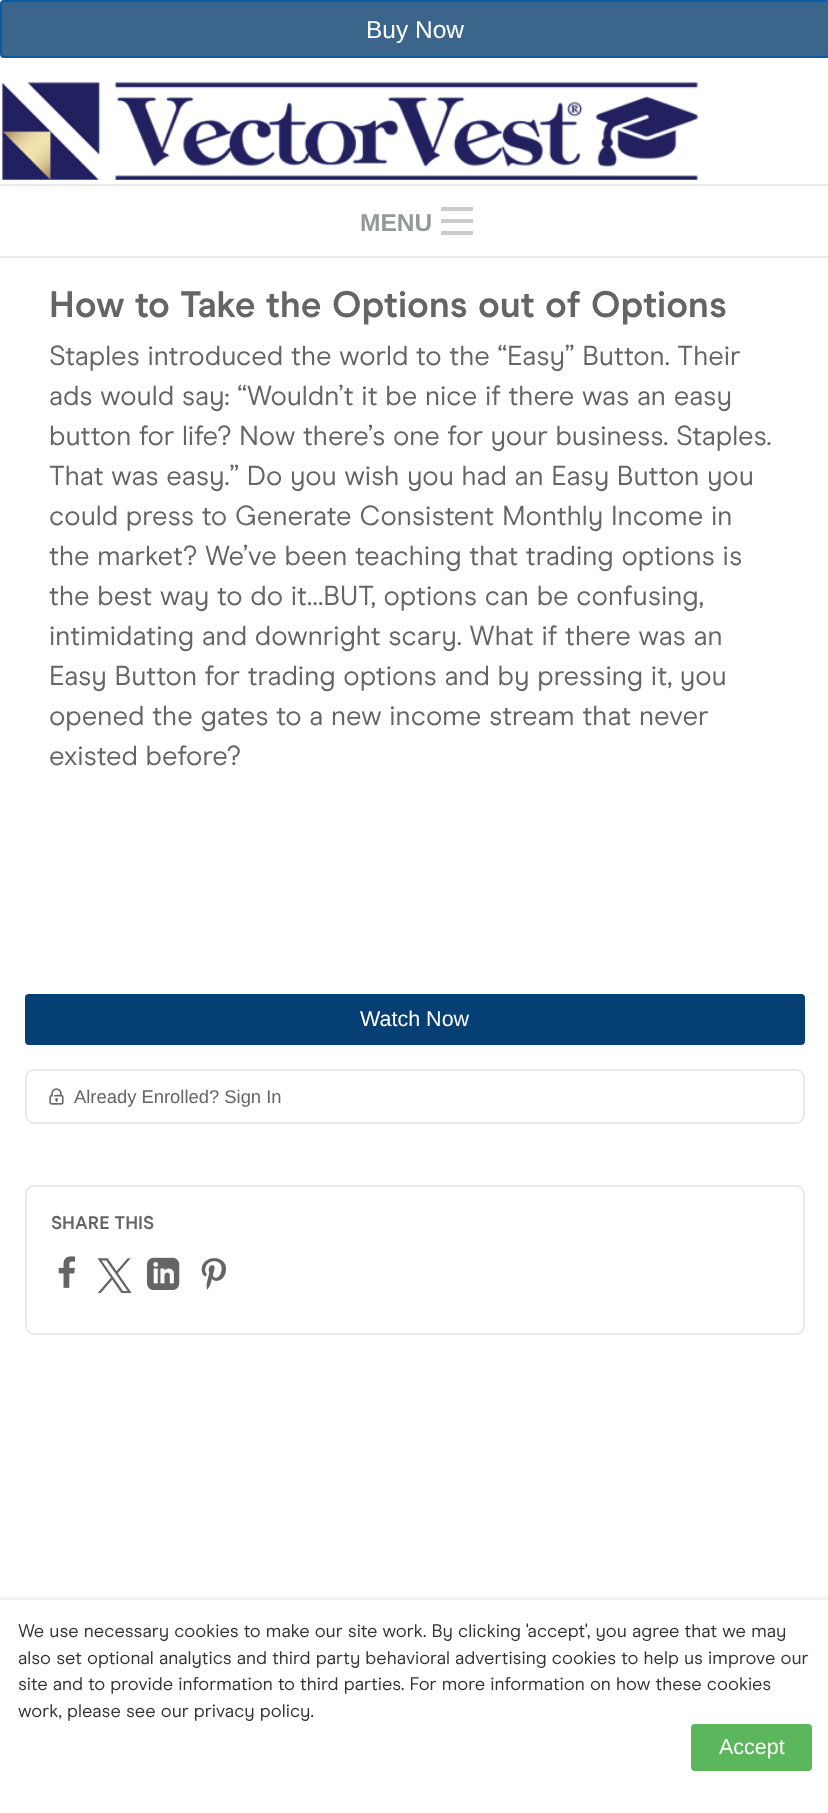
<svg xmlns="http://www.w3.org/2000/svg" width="828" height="1813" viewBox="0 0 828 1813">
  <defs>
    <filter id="blur1" x="-50%" y="-200%" width="200%" height="500%"><feGaussianBlur stdDeviation="2"/></filter>
  </defs>
  <rect width="100%" height="100%" fill="#ffffff"/>
  <rect x="1" y="1" width="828" height="56" rx="3" fill="#3c658c" stroke="#095aa3" stroke-width="2"/>
  <text x="366" y="38" font-family="Liberation Sans" font-size="24.5" fill="#ffffff">Buy Now</text>
  <rect x="26" y="995" width="778" height="49" rx="3" fill="#063f73" stroke="#063f73" stroke-width="2"/>
  <text x="360" y="1026" font-family="Liberation Sans" font-size="21.5" fill="#ffffff">Watch Now</text>
  <rect x="26" y="1070" width="778" height="53" rx="8" fill="none" stroke="#e9e9e9" stroke-width="2"/>
  <image x="49" y="1088" width="15" height="17" href="img1.png"/>
  <text x="74" y="1103" font-family="Liberation Sans" font-size="18.4" fill="#656565">Already Enrolled? Sign In</text>
  <rect x="26" y="1186" width="778" height="148" rx="8" fill="none" stroke="#e9e9e9" stroke-width="2"/>
  <text x="51" y="1229" font-family="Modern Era" font-size="18.4" font-weight="bold" fill="#656565">SHARE THIS</text>
  <image x="58" y="1256" width="18" height="32" href="img2.png"/>
  <image x="97" y="1258" width="35" height="35" href="img3.png"/>
  <image x="147" y="1257" width="33" height="33" href="img4.png"/>
  <image x="201" y="1258" width="25" height="32" href="img5.png"/>
  <text x="49" y="317" font-family="Modern Era" font-size="36.75" font-weight="bold" fill="#656565">How to Take the Options out of Options</text>
  <text x="49" y="365" font-family="Modern Era" font-size="27.55" fill="#656565">Staples introduced the world to the “Easy” Button. Their</text>
  <text x="49" y="405" font-family="Modern Era" font-size="27.55" fill="#656565">ads would say: “Wouldn’t it be nice if there was an easy</text>
  <text x="49" y="445" font-family="Modern Era" font-size="27.55" fill="#656565">button for life? Now there’s one for your business. Staples.</text>
  <text x="49" y="485" font-family="Modern Era" font-size="27.55" fill="#656565">That was easy.” Do you wish you had an Easy Button you</text>
  <text x="49" y="525" font-family="Modern Era" font-size="27.55" fill="#656565">could press to Generate Consistent Monthly Income in</text>
  <text x="49" y="565" font-family="Modern Era" font-size="27.55" fill="#656565">the market? We’ve been teaching that trading options is</text>
  <text x="49" y="605" font-family="Modern Era" font-size="27.55" fill="#656565">the best way to do it…BUT, options can be confusing,</text>
  <text x="49" y="645" font-family="Modern Era" font-size="27.55" fill="#656565">intimidating and downright scary. What if there was an</text>
  <text x="49" y="685" font-family="Modern Era" font-size="27.55" fill="#656565">Easy Button for trading options and by pressing it, you</text>
  <text x="49" y="725" font-family="Modern Era" font-size="27.55" fill="#656565">opened the gates to a new income stream that never</text>
  <text x="49" y="765" font-family="Modern Era" font-size="27.55" fill="#656565">existed before?</text>
  <image x="2" y="82" width="696" height="98" href="img6.png"/>
  <rect x="0" y="184" width="828" height="2" fill="#e9e9e9"/>
  <rect x="0" y="256" width="828" height="2" fill="#e9e9e9"/>
  <text x="360" y="231" font-family="Liberation Sans" font-size="24.5" font-weight="bold" fill="#969797">MENU</text>
  <rect x="441" y="231" width="32" height="4" fill="#cbcbcb"/>
  <rect x="441" y="219" width="32" height="4" fill="#cbcbcb"/>
  <rect x="441" y="207" width="32" height="4" fill="#cbcbcb"/>
  <rect x="0" y="1598" width="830" height="213" fill="#e9e9e9" filter="url(#blur1)"/>
  <rect x="0" y="1600" width="828" height="213" fill="#ffffff"/>
  <text x="18" y="1637" font-family="Modern Era" font-size="18.4" fill="#333333">We use necessary cookies to make our site work. By clicking 'accept', you agree that we may</text>
  <text x="18" y="1664" font-family="Modern Era" font-size="18.4" fill="#333333">also set optional analytics and third party behavioral advertising cookies to help us improve our</text>
  <text x="18" y="1690" font-family="Modern Era" font-size="18.4" fill="#333333">site and to provide information to third parties. For more information on how these cookies</text>
  <text x="18" y="1717" font-family="Modern Era" font-size="18.4" fill="#333333">work, please see our privacy policy.</text>
  <rect x="691" y="1724" width="121" height="47" rx="4" fill="#5bb65c"/>
  <text x="719" y="1754" font-family="Liberation Sans" font-size="21.5" fill="#ffffff">Accept</text>
</svg>
